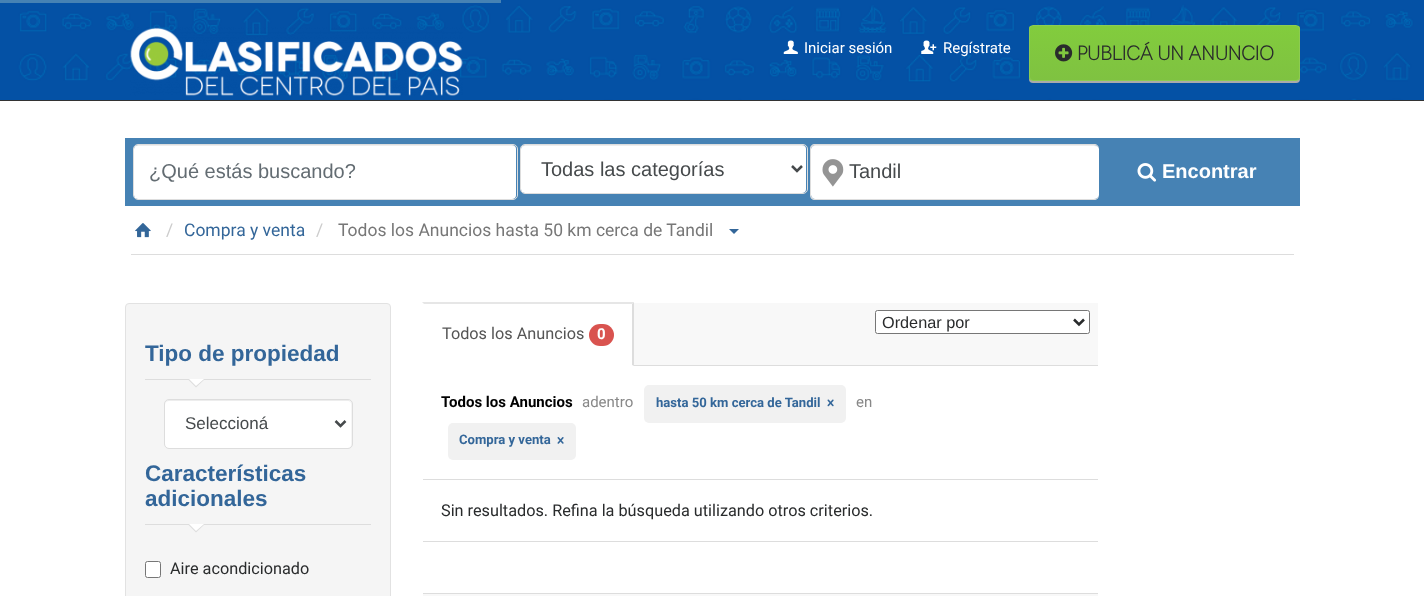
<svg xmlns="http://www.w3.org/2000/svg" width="1424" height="596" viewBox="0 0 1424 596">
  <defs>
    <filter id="blur1" x="-50%" y="-200%" width="200%" height="500%"><feGaussianBlur stdDeviation="0.5"/></filter>
    <clipPath id="clip1"><rect x="1029" y="25" width="271" height="56" rx="4"/></clipPath>
    <linearGradient id="g1" gradientUnits="userSpaceOnUse" x1="1164" y1="26" x2="1164" y2="80"><stop offset="0" stop-color="#82cc3d"/><stop offset="1" stop-color="#7fc241"/></linearGradient>
  </defs>
  <rect width="100%" height="100%" fill="#ffffff"/>
  <image x="0" y="0" width="1424" height="100" href="img1.png"/>
  <rect x="0" y="0" width="501" height="3" fill="#4682b4"/>
  <rect x="0" y="100" width="1424" height="1" fill="#333333"/>
  <image x="130" y="27" width="333" height="69" href="img2.png"/>
  <image x="783" y="40" width="15" height="14" href="img3.png"/>
  <text x="804" y="53" font-family="Roboto" font-size="15" fill="#ffffff">Iniciar sesión</text>
  <image x="921" y="40" width="16" height="14" href="img4.png"/>
  <text x="943" y="53" font-family="Roboto" font-size="15" fill="#ffffff">Regístrate</text>
  <rect x="1029" y="26" width="271" height="57" rx="4" fill="#aaaaaa" filter="url(#blur1)"/>
  <g clip-path="url(#clip1)">
    <rect x="1029" y="26" width="271" height="54" fill="url(#g1)"/>
  </g>
  <rect x="1029.5" y="25.5" width="270" height="55" rx="3.5" fill="none" stroke="#8dcc52"/>
  <image x="1055" y="44" width="18" height="18" href="img5.png"/>
  <text x="1077" y="60" font-family="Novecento" font-size="20" font-weight="bold" fill="#292b2c">PUBLICÁ UN ANUNCIO</text>
  <rect x="125" y="138" width="1175" height="68" fill="#4682b4"/>
  <rect x="134" y="145" width="382" height="54" rx="4" fill="#ffffff"/>
  <path d="M138 146H512C515 146 516 148 516 150C516 147 515 145 512 145H138C135 145 134 147 134 150C134 148 135 146 138 146Z" fill="#000000" fill-opacity="0.07"/>
  <rect x="133.5" y="144.5" width="384" height="55" rx="4.5" fill="none" stroke="#dddddd"/>
  <text x="149" y="178" font-family="Liberation Sans" font-size="20" fill="#636c72">¿Qué estás buscando?</text>
  <rect x="521" y="145" width="285" height="48" rx="4" fill="#ffffff"/>
  <path d="M525 146H802C805 146 806 148 806 150C806 147 805 145 802 145H525C522 145 521 147 521 150C521 148 523 146 525 146Z" fill="#000000" fill-opacity="0.07"/>
  <rect x="520.5" y="144.5" width="287" height="49" rx="4.5" fill="none" stroke="#dddddd"/>
  <path d="M792 166L797 171L802 166" fill="none" stroke="#464a4c" stroke-width="2.5"/>
  <text x="541" y="176" font-family="Liberation Sans" font-size="20" fill="#464a4c">Todas las categorías</text>
  <path d="M815 145H1094C1097 145 1099 147 1099 149V195C1099 197 1097 199 1094 199H815C813 199 811 197 811 195V149C811 147 813 145 815 145Z" fill="#ffffff"/>
  <path d="M815 146H1094L1098 147L1099 149C1099 146 1096 145 1094 145H815C813 145 811 147 811 149C812 147 813 146 815 146Z" fill="#000000" fill-opacity="0.07"/>
  <path d="M815 144H1094C1097 144 1099 146 1099 149V195C1099 198 1097 200 1094 200H815C812 200 810 198 810 195V149C810 146 812 144 815 144ZM815 145H1094C1097 145 1099 147 1099 149V195C1099 197 1097 199 1094 199H815C813 199 811 197 811 195V149C811 147 813 145 815 145Z" fill="#dddddd" fill-rule="evenodd"/>
  <image x="822" y="159" width="22" height="28" href="img6.png"/>
  <text x="849" y="178" font-family="Liberation Sans" font-size="20" fill="#464a4c">Tandil</text>
  <image x="1137" y="163" width="20" height="19" href="img7.png"/>
  <text x="1162" y="178" font-family="Liberation Sans" font-size="20" font-weight="bold" fill="#ffffff">Encontrar</text>
  <rect x="131" y="254" width="1163" height="1" fill="#dddddd"/>
  <image x="135" y="223" width="16" height="15" href="img8.png"/>
  <text x="166" y="236" font-family="Roboto" font-size="17.5" fill="#cccccc">/</text>
  <text x="184" y="236" font-family="Roboto" font-size="17.5" fill="#336699">Compra y venta</text>
  <text x="316" y="236" font-family="Roboto" font-size="17.5" fill="#cccccc">/</text>
  <text x="338" y="236" font-family="Roboto" font-size="17.5" fill="#777777">Todos los Anuncios hasta 50 km cerca de Tandil</text>
  <path d="M729 229H739L734 234Z" fill="#336699"/>
  <rect x="125.5" y="303.5" width="265" height="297" rx="3.5" fill="#f5f5f5" stroke="#e2e2e2"/>
  <rect x="145" y="379" width="226" height="1" fill="#dddddd"/>
  <text x="145" y="361" font-family="Liberation Sans" font-size="22.5" font-weight="bold" fill="#336699">Tipo de propiedad</text>
  <path d="M187.5 379H205L196 387.5Z" fill="#dddddd"/>
  <path d="M189 379H204L196 386Z" fill="#ffffff"/>
  <rect x="165" y="400" width="186" height="48" rx="4" fill="#ffffff"/>
  <path d="M169 401H348C350 401 351 403 351 405C351 402 350 400 347 400H168C166 401 165 403 165 405C165 403 167 401 169 401Z" fill="#000000" fill-opacity="0.07"/>
  <rect x="164.5" y="399.5" width="188" height="49" rx="4.5" fill="none" stroke="#dddddd"/>
  <path d="M335.5 421L340.5 426L345.5 421" fill="none" stroke="#464a4c" stroke-width="2.5"/>
  <text x="185" y="429" font-family="Liberation Sans" font-size="17" fill="#464a4c">Seleccioná</text>
  <rect x="145" y="524" width="226" height="1" fill="#dddddd"/>
  <text x="145" y="481" font-family="Liberation Sans" font-size="22.5" font-weight="bold" fill="#336699">Características</text>
  <text x="145" y="506" font-family="Liberation Sans" font-size="22.5" font-weight="bold" fill="#336699">adicionales</text>
  <path d="M187.5 524H205L196 532.5Z" fill="#dddddd"/>
  <path d="M189 524H204L196 531Z" fill="#ffffff"/>
  <rect x="145.5" y="561.5" width="15" height="16" rx="2" fill="#ffffff" stroke="#767676"/>
  <text x="170" y="574" font-family="Roboto" font-size="16.25" fill="#292b2c">Aire acondicionado</text>
  <rect x="423" y="304" width="675" height="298" rx="4" fill="#b4b4b4" fill-opacity="0.5" filter="url(#blur1)"/>
  <rect x="423" y="366" width="675" height="227" fill="#ffffff"/>
  <rect x="634" y="303" width="464" height="62" fill="#f8f8f8"/>
  <rect x="634" y="365" width="464" height="1" fill="#dddddd"/>
  <rect x="423" y="303" width="211" height="63" fill="#ffffff"/>
  <path d="M422 302H634L632 304H424Z" fill="#e6e6e6"/>
  <path d="M634 302V366L632 365V304Z" fill="#dddddd"/>
  <text x="442" y="339" font-family="Roboto" font-size="16.25" fill="#555555">Todos los Anuncios</text>
  <rect x="589" y="324" width="25" height="22" rx="11" fill="#d9534f"/>
  <text x="597" y="339" font-family="Roboto" font-size="15" font-weight="bold" fill="#ffffff">0</text>
  <rect x="875.5" y="310.5" width="214" height="23" rx="2" fill="#ffffff" stroke="#767676"/>
  <path d="M1074 319.5L1079 324.5L1084 319.5" fill="none" stroke="#292b2c" stroke-width="2.5"/>
  <text x="882" y="328" font-family="Liberation Sans" font-size="16.25" fill="#292b2c">Ordenar por</text>
  <rect x="423" y="479" width="675" height="1" fill="#dddddd"/>
  <text x="441" y="407" font-family="Roboto" font-size="15" font-weight="bold" fill="#000000">Todos los Anuncios</text>
  <text x="582" y="407" font-family="Roboto" font-size="15" fill="#888888">adentro</text>
  <rect x="644" y="385" width="202" height="38" rx="5" fill="#f1f1f1"/>
  <text x="656" y="407" font-family="Roboto" font-size="13.1" font-weight="bold" fill="#336699">hasta 50 km cerca de Tandil</text>
  <image x="827" y="399" width="7" height="8" href="img9.png"/>
  <text x="856" y="407" font-family="Roboto" font-size="15" fill="#888888">en</text>
  <rect x="448" y="423" width="128" height="37" rx="5" fill="#f1f1f1"/>
  <text x="459" y="444" font-family="Roboto" font-size="13.1" font-weight="bold" fill="#336699">Compra y venta</text>
  <image x="557" y="437" width="7" height="7" href="img10.png"/>
  <rect x="423" y="541" width="675" height="1" fill="#dddddd"/>
  <text x="441" y="516" font-family="Roboto" font-size="16.25" fill="#292b2c">Sin resultados. Refina la búsqueda utilizando otros criterios.</text>
  <rect x="423" y="594" width="675" height="2" fill="#f8f8f8"/>
  <rect x="423" y="593" width="675" height="1" fill="#dddddd"/>
</svg>
